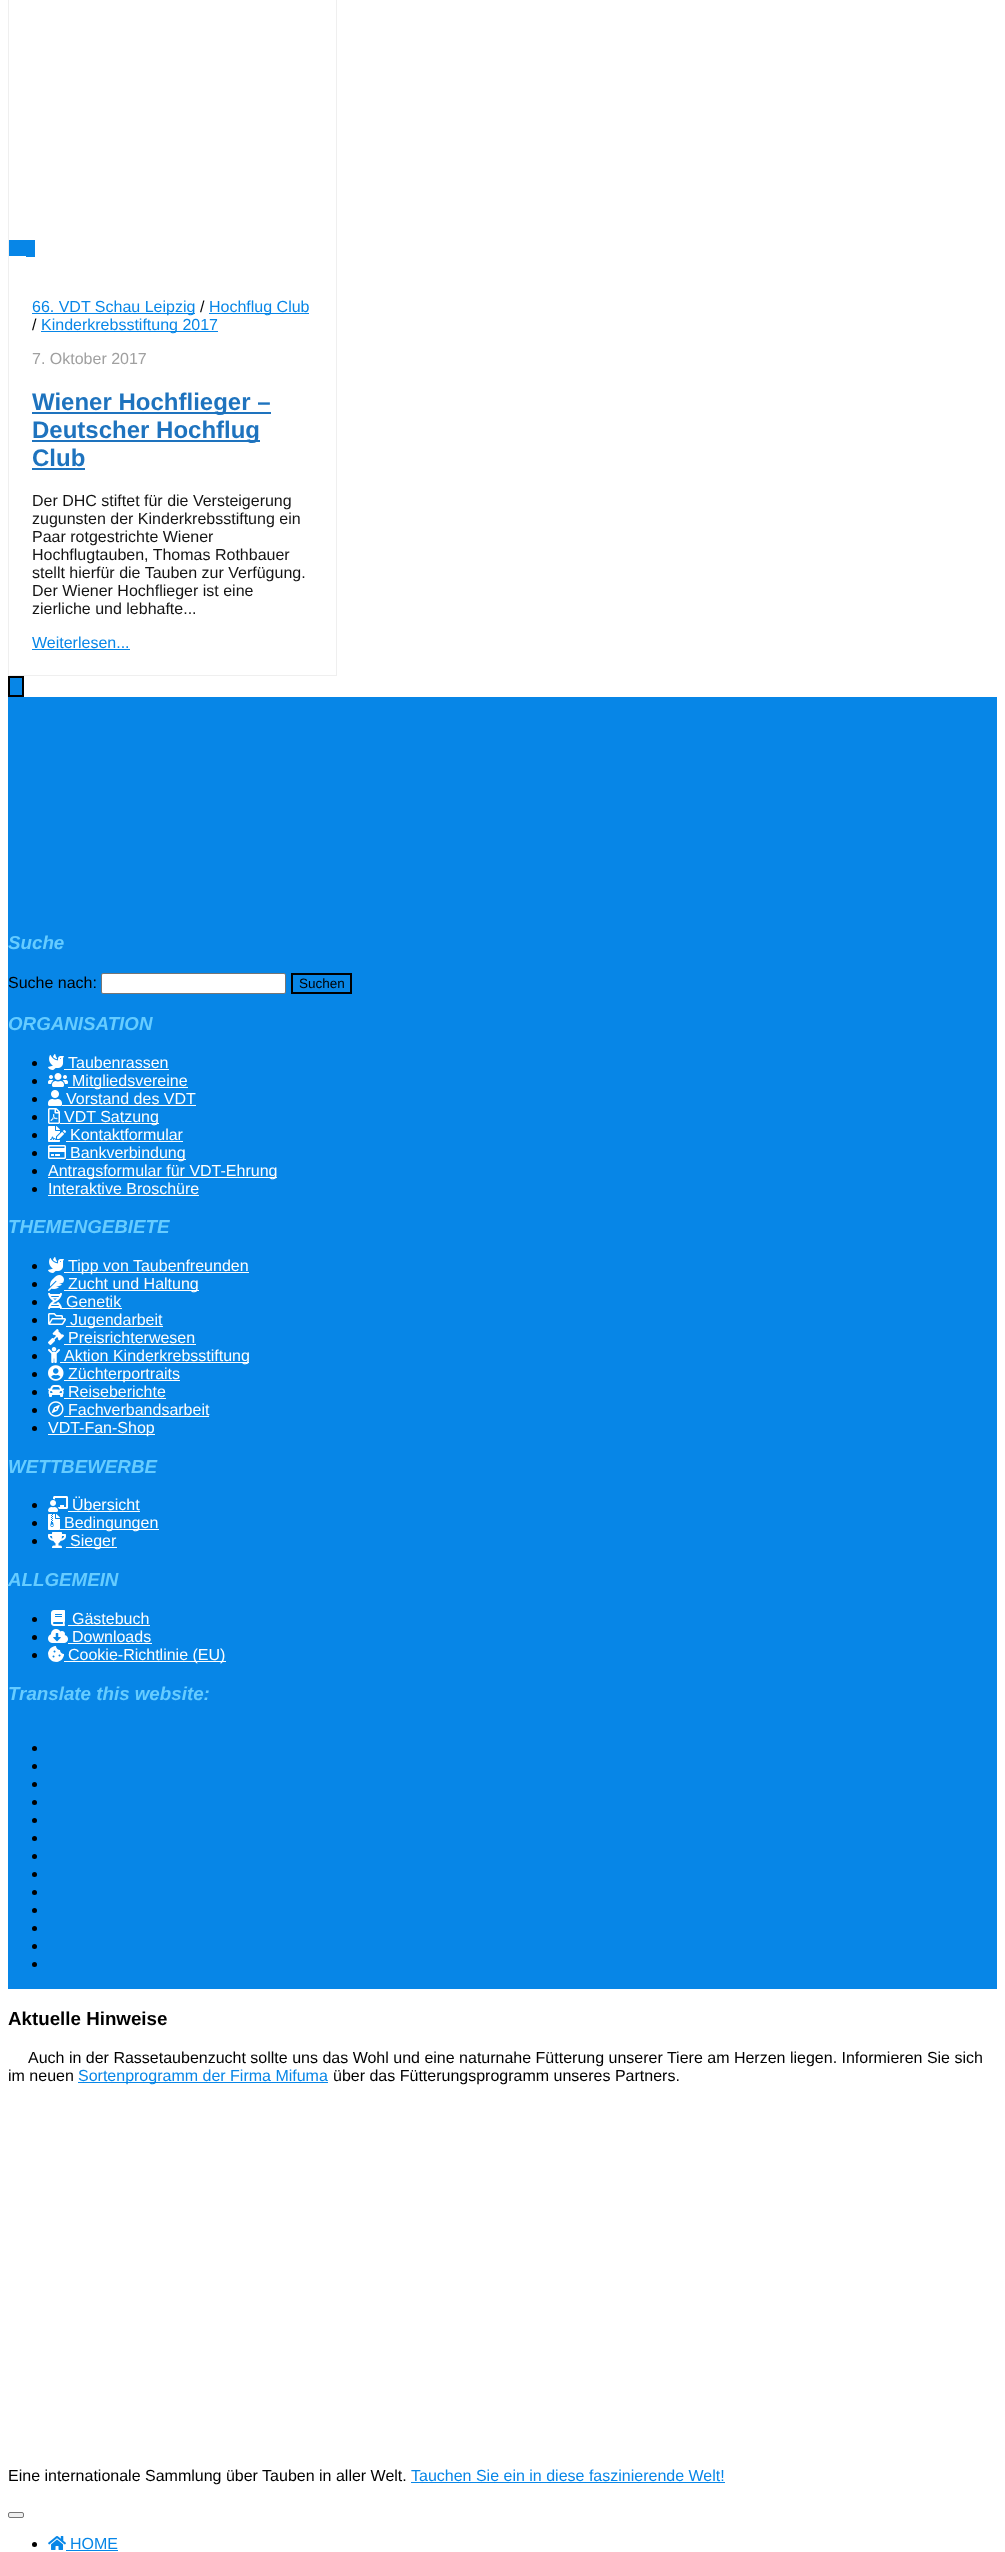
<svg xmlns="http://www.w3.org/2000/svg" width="1005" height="2552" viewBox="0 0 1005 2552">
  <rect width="100%" height="100%" fill="#ffffff"/>
  <rect x="9" y="240" width="17" height="16" fill="#0786e7"/>
  <rect x="26" y="240" width="9" height="17" fill="#0786e7"/>
  <rect x="32" y="313" width="163" height="1" fill="#0786e7"/>
  <rect x="209" y="313" width="100" height="1" fill="#0786e7"/>
  <rect x="41" y="331" width="177" height="1" fill="#0786e7"/>
  <rect x="32" y="412" width="239" height="2" fill="#1e73be"/>
  <rect x="32" y="440" width="228" height="2" fill="#1e73be"/>
  <rect x="32" y="468" width="53" height="2" fill="#1e73be"/>
  <rect x="32" y="649" width="98" height="1" fill="#0786e7"/>
  <rect x="8.5" y="-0.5" width="328" height="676" fill="none" stroke="#efefef"/>
  <text x="32" y="312" font-family="Liberation Sans" font-size="16" fill="#0786e7">66. VDT Schau Leipzig</text>
  <text x="200" y="312" font-family="Liberation Sans" font-size="16" fill="#000000">/</text>
  <text x="209" y="312" font-family="Liberation Sans" font-size="16" fill="#0786e7">Hochflug Club</text>
  <text x="32" y="330" font-family="Liberation Sans" font-size="16" fill="#000000">/</text>
  <text x="41" y="330" font-family="Liberation Sans" font-size="16" fill="#0786e7">Kinderkrebsstiftung 2017</text>
  <text x="32" y="364" font-family="Liberation Sans" font-size="16" fill="#a0a0a0">7. Oktober 2017</text>
  <text x="32" y="410" font-family="Liberation Sans" font-size="24" font-weight="bold" fill="#1e73be">Wiener Hochflieger –</text>
  <text x="32" y="438" font-family="Liberation Sans" font-size="24" font-weight="bold" fill="#1e73be">Deutscher Hochflug</text>
  <text x="32" y="466" font-family="Liberation Sans" font-size="24" font-weight="bold" fill="#1e73be">Club</text>
  <text x="32" y="506" font-family="Liberation Sans" font-size="16" fill="#141414">Der DHC stiftet für die Versteigerung</text>
  <text x="32" y="524" font-family="Liberation Sans" font-size="16" fill="#141414">zugunsten der Kinderkrebsstiftung ein</text>
  <text x="32" y="542" font-family="Liberation Sans" font-size="16" fill="#141414">Paar rotgestrichte Wiener</text>
  <text x="32" y="560" font-family="Liberation Sans" font-size="16" fill="#141414">Hochflugtauben, Thomas Rothbauer</text>
  <text x="32" y="578" font-family="Liberation Sans" font-size="16" fill="#141414">stellt hierfür die Tauben zur Verfügung.</text>
  <text x="32" y="596" font-family="Liberation Sans" font-size="16" fill="#141414">Der Wiener Hochflieger ist eine</text>
  <text x="32" y="614" font-family="Liberation Sans" font-size="16" fill="#141414">zierliche und lebhafte...</text>
  <text x="32" y="648" font-family="Liberation Sans" font-size="16" fill="#0786e7">Weiterlesen...</text>
  <rect x="9" y="677" width="14" height="19" fill="#0786e7" stroke="#000000" stroke-width="2"/>
  <rect x="8" y="697" width="989" height="1292" fill="#0786e7"/>
  <text x="8" y="949" font-family="Liberation Sans" font-size="18.75" font-weight="bold" font-style="italic" fill="#66ccff">Suche</text>
  <text x="8" y="988" font-family="Liberation Sans" font-size="16" fill="#000000">Suche nach:</text>
  <rect x="101.5" y="973.5" width="184" height="20" rx="1.5" fill="#ffffff" stroke="#767676"/>
  <rect x="292" y="974" width="59" height="19" fill="none" stroke="#000000" stroke-width="2"/>
  <text x="299" y="988" font-family="Liberation Sans" font-size="13.5" fill="#000000">Suchen</text>
  <text x="8" y="1030" font-family="Liberation Sans" font-size="18.75" font-weight="bold" font-style="italic" fill="#66ccff">ORGANISATION</text>
  <circle cx="34.5" cy="1063.5" r="2.5" fill="#000000"/>
  <image x="48" y="1054" width="16" height="16" href="img1.png"/>
  <text x="68" y="1068" font-family="Liberation Sans" font-size="16" fill="#ffffff">Taubenrassen</text>
  <rect x="64" y="1069" width="105" height="1" fill="#ffffff"/>
  <circle cx="34.5" cy="1081.5" r="2.5" fill="#000000"/>
  <image x="48" y="1073" width="20" height="14" href="img2.png"/>
  <rect x="68" y="1087" width="120" height="1" fill="#ffffff"/>
  <text x="72" y="1086" font-family="Liberation Sans" font-size="16" fill="#ffffff">Mitgliedsvereine</text>
  <circle cx="34.5" cy="1099.5" r="2.5" fill="#000000"/>
  <image x="48" y="1090" width="14" height="16" href="img3.png"/>
  <text x="66" y="1104" font-family="Liberation Sans" font-size="16" fill="#ffffff">Vorstand des VDT</text>
  <rect x="62" y="1105" width="134" height="1" fill="#ffffff"/>
  <circle cx="34.5" cy="1117.5" r="2.5" fill="#000000"/>
  <image x="48" y="1108" width="12" height="16" href="img4.png"/>
  <rect x="60" y="1123" width="99" height="1" fill="#ffffff"/>
  <text x="64" y="1122" font-family="Liberation Sans" font-size="16" fill="#ffffff">VDT Satzung</text>
  <circle cx="34.5" cy="1135.5" r="2.5" fill="#000000"/>
  <image x="48" y="1126" width="18" height="16" href="img5.png"/>
  <text x="70" y="1140" font-family="Liberation Sans" font-size="16" fill="#ffffff">Kontaktformular</text>
  <rect x="66" y="1141" width="117" height="1" fill="#ffffff"/>
  <circle cx="34.5" cy="1153.5" r="2.5" fill="#000000"/>
  <image x="48" y="1145" width="18" height="14" href="img6.png"/>
  <rect x="66" y="1159" width="120" height="1" fill="#ffffff"/>
  <text x="70" y="1158" font-family="Liberation Sans" font-size="16" fill="#ffffff">Bankverbindung</text>
  <circle cx="34.5" cy="1171.5" r="2.5" fill="#000000"/>
  <rect x="48" y="1177" width="229" height="1" fill="#ffffff"/>
  <text x="48" y="1176" font-family="Liberation Sans" font-size="16" fill="#ffffff">Antragsformular für VDT-Ehrung</text>
  <circle cx="34.5" cy="1189.5" r="2.5" fill="#000000"/>
  <text x="48" y="1194" font-family="Liberation Sans" font-size="16" fill="#ffffff">Interaktive Broschüre</text>
  <rect x="48" y="1195" width="151" height="1" fill="#ffffff"/>
  <text x="8" y="1233" font-family="Liberation Sans" font-size="18.75" font-weight="bold" font-style="italic" fill="#66ccff">THEMENGEBIETE</text>
  <circle cx="34.5" cy="1266.5" r="2.5" fill="#000000"/>
  <image x="48" y="1257" width="16" height="16" href="img1.png"/>
  <rect x="64" y="1272" width="185" height="1" fill="#ffffff"/>
  <text x="68" y="1271" font-family="Liberation Sans" font-size="16" fill="#ffffff">Tipp von Taubenfreunden</text>
  <circle cx="34.5" cy="1284.5" r="2.5" fill="#000000"/>
  <image x="48" y="1275" width="16" height="16" href="img7.png"/>
  <rect x="64" y="1290" width="135" height="1" fill="#ffffff"/>
  <text x="68" y="1289" font-family="Liberation Sans" font-size="16" fill="#ffffff">Zucht und Haltung</text>
  <circle cx="34.5" cy="1302.5" r="2.5" fill="#000000"/>
  <image x="48" y="1293" width="14" height="16" href="img8.png"/>
  <text x="66" y="1307" font-family="Liberation Sans" font-size="16" fill="#ffffff">Genetik</text>
  <rect x="62" y="1308" width="60" height="1" fill="#ffffff"/>
  <circle cx="34.5" cy="1320.5" r="2.5" fill="#000000"/>
  <image x="48" y="1313" width="18" height="12" href="img9.png"/>
  <rect x="66" y="1326" width="97" height="1" fill="#ffffff"/>
  <text x="70" y="1325" font-family="Liberation Sans" font-size="16" fill="#ffffff">Jugendarbeit</text>
  <circle cx="34.5" cy="1338.5" r="2.5" fill="#000000"/>
  <image x="48" y="1329" width="16" height="16" href="img10.png"/>
  <text x="68" y="1343" font-family="Liberation Sans" font-size="16" fill="#ffffff">Preisrichterwesen</text>
  <rect x="64" y="1344" width="132" height="1" fill="#ffffff"/>
  <circle cx="34.5" cy="1356.5" r="2.5" fill="#000000"/>
  <image x="48" y="1347" width="12" height="16" href="img11.png"/>
  <rect x="60" y="1362" width="189" height="1" fill="#ffffff"/>
  <text x="64" y="1361" font-family="Liberation Sans" font-size="16" fill="#ffffff">Aktion Kinderkrebsstiftung</text>
  <circle cx="34.5" cy="1374.5" r="2.5" fill="#000000"/>
  <image x="48" y="1365" width="16" height="16" href="img12.png"/>
  <rect x="64" y="1380" width="116" height="1" fill="#ffffff"/>
  <text x="68" y="1379" font-family="Liberation Sans" font-size="16" fill="#ffffff">Züchterportraits</text>
  <circle cx="34.5" cy="1392.5" r="2.5" fill="#000000"/>
  <image x="48" y="1385" width="16" height="12" href="img13.png"/>
  <text x="68" y="1397" font-family="Liberation Sans" font-size="16" fill="#ffffff">Reiseberichte</text>
  <rect x="64" y="1398" width="102" height="1" fill="#ffffff"/>
  <circle cx="34.5" cy="1410.5" r="2.5" fill="#000000"/>
  <image x="48" y="1401" width="16" height="16" href="img14.png"/>
  <text x="68" y="1415" font-family="Liberation Sans" font-size="16" fill="#ffffff">Fachverbandsarbeit</text>
  <rect x="64" y="1416" width="145" height="1" fill="#ffffff"/>
  <circle cx="34.5" cy="1428.5" r="2.5" fill="#000000"/>
  <rect x="48" y="1434" width="107" height="1" fill="#ffffff"/>
  <text x="48" y="1433" font-family="Liberation Sans" font-size="16" fill="#ffffff">VDT-Fan-Shop</text>
  <text x="8" y="1473" font-family="Liberation Sans" font-size="18.75" font-weight="bold" font-style="italic" fill="#66ccff">WETTBEWERBE</text>
  <circle cx="34.5" cy="1505.5" r="2.5" fill="#000000"/>
  <image x="48" y="1496" width="21" height="16" href="img15.png"/>
  <text x="72" y="1510" font-family="Liberation Sans" font-size="16" fill="#ffffff">Übersicht</text>
  <rect x="68" y="1511" width="72" height="1" fill="#ffffff"/>
  <circle cx="34.5" cy="1523.5" r="2.5" fill="#000000"/>
  <image x="48" y="1514" width="12" height="16" href="img16.png"/>
  <rect x="60" y="1529" width="99" height="1" fill="#ffffff"/>
  <text x="64" y="1528" font-family="Liberation Sans" font-size="16" fill="#ffffff">Bedingungen</text>
  <circle cx="34.5" cy="1541.5" r="2.5" fill="#000000"/>
  <image x="48" y="1532" width="18" height="16" href="img17.png"/>
  <rect x="66" y="1547" width="51" height="1" fill="#ffffff"/>
  <text x="70" y="1546" font-family="Liberation Sans" font-size="16" fill="#ffffff">Sieger</text>
  <text x="8" y="1586" font-family="Liberation Sans" font-size="18.75" font-weight="bold" font-style="italic" fill="#66ccff">ALLGEMEIN</text>
  <circle cx="34.5" cy="1619.5" r="2.5" fill="#000000"/>
  <image x="51" y="1610" width="14" height="16" href="img18.png"/>
  <text x="72" y="1624" font-family="Liberation Sans" font-size="16" fill="#ffffff">Gästebuch</text>
  <rect x="68" y="1625" width="82" height="1" fill="#ffffff"/>
  <circle cx="34.5" cy="1637.5" r="2.5" fill="#000000"/>
  <image x="48" y="1629" width="20" height="14" href="img19.png"/>
  <text x="72" y="1642" font-family="Liberation Sans" font-size="16" fill="#ffffff">Downloads</text>
  <rect x="68" y="1643" width="84" height="1" fill="#ffffff"/>
  <circle cx="34.5" cy="1655.5" r="2.5" fill="#000000"/>
  <image x="48" y="1646" width="16" height="16" href="img20.png"/>
  <rect x="64" y="1661" width="162" height="1" fill="#ffffff"/>
  <text x="68" y="1660" font-family="Liberation Sans" font-size="16" fill="#ffffff">Cookie-Richtlinie (EU)</text>
  <text x="8" y="1700" font-family="Liberation Sans" font-size="18.75" font-weight="bold" font-style="italic" fill="#66ccff">Translate this website:</text>
  <circle cx="34.5" cy="1748.5" r="2.5" fill="#000000"/>
  <circle cx="34.5" cy="1766.5" r="2.5" fill="#000000"/>
  <circle cx="34.5" cy="1784.5" r="2.5" fill="#000000"/>
  <circle cx="34.5" cy="1802.5" r="2.5" fill="#000000"/>
  <circle cx="34.5" cy="1820.5" r="2.5" fill="#000000"/>
  <circle cx="34.5" cy="1838.5" r="2.5" fill="#000000"/>
  <circle cx="34.5" cy="1856.5" r="2.5" fill="#000000"/>
  <circle cx="34.5" cy="1874.5" r="2.5" fill="#000000"/>
  <circle cx="34.5" cy="1892.5" r="2.5" fill="#000000"/>
  <circle cx="34.5" cy="1910.5" r="2.5" fill="#000000"/>
  <circle cx="34.5" cy="1928.5" r="2.5" fill="#000000"/>
  <circle cx="34.5" cy="1946.5" r="2.5" fill="#000000"/>
  <circle cx="34.5" cy="1964.5" r="2.5" fill="#000000"/>
  <text x="8" y="2025" font-family="Liberation Sans" font-size="18.75" font-weight="bold" fill="#000000">Aktuelle Hinweise</text>
  <text x="28" y="2063" font-family="Liberation Sans" font-size="16" fill="#000000">Auch in der Rassetaubenzucht sollte uns das Wohl und eine naturnahe Fütterung unserer Tiere am Herzen liegen. Informieren Sie sich</text>
  <text x="8" y="2081" font-family="Liberation Sans" font-size="16" fill="#000000">im neuen</text>
  <rect x="78" y="2082" width="250" height="1" fill="#0786e7"/>
  <text x="78" y="2081" font-family="Liberation Sans" font-size="16" fill="#0786e7">Sortenprogramm der Firma Mifuma</text>
  <text x="333" y="2081" font-family="Liberation Sans" font-size="16" fill="#000000">über das Fütterungsprogramm unseres Partners.</text>
  <text x="8" y="2481" font-family="Liberation Sans" font-size="16" fill="#000000">Eine internationale Sammlung über Tauben in aller Welt.</text>
  <text x="411" y="2481" font-family="Liberation Sans" font-size="16" fill="#0786e7">Tauchen Sie ein in diese faszinierende Welt!</text>
  <rect x="411" y="2482" width="314" height="1" fill="#0786e7"/>
  <rect x="8.5" y="2512.5" width="15" height="5" rx="1.5" fill="#efefef" stroke="#767676"/>
  <circle cx="34.5" cy="2544.5" r="2.5" fill="#000000"/>
  <image x="48" y="2536" width="18" height="14" href="img21.png"/>
  <text x="70" y="2549" font-family="Liberation Sans" font-size="16" fill="#0786e7">HOME</text>
  <rect x="66" y="2550" width="52" height="1" fill="#0786e7"/>
</svg>
